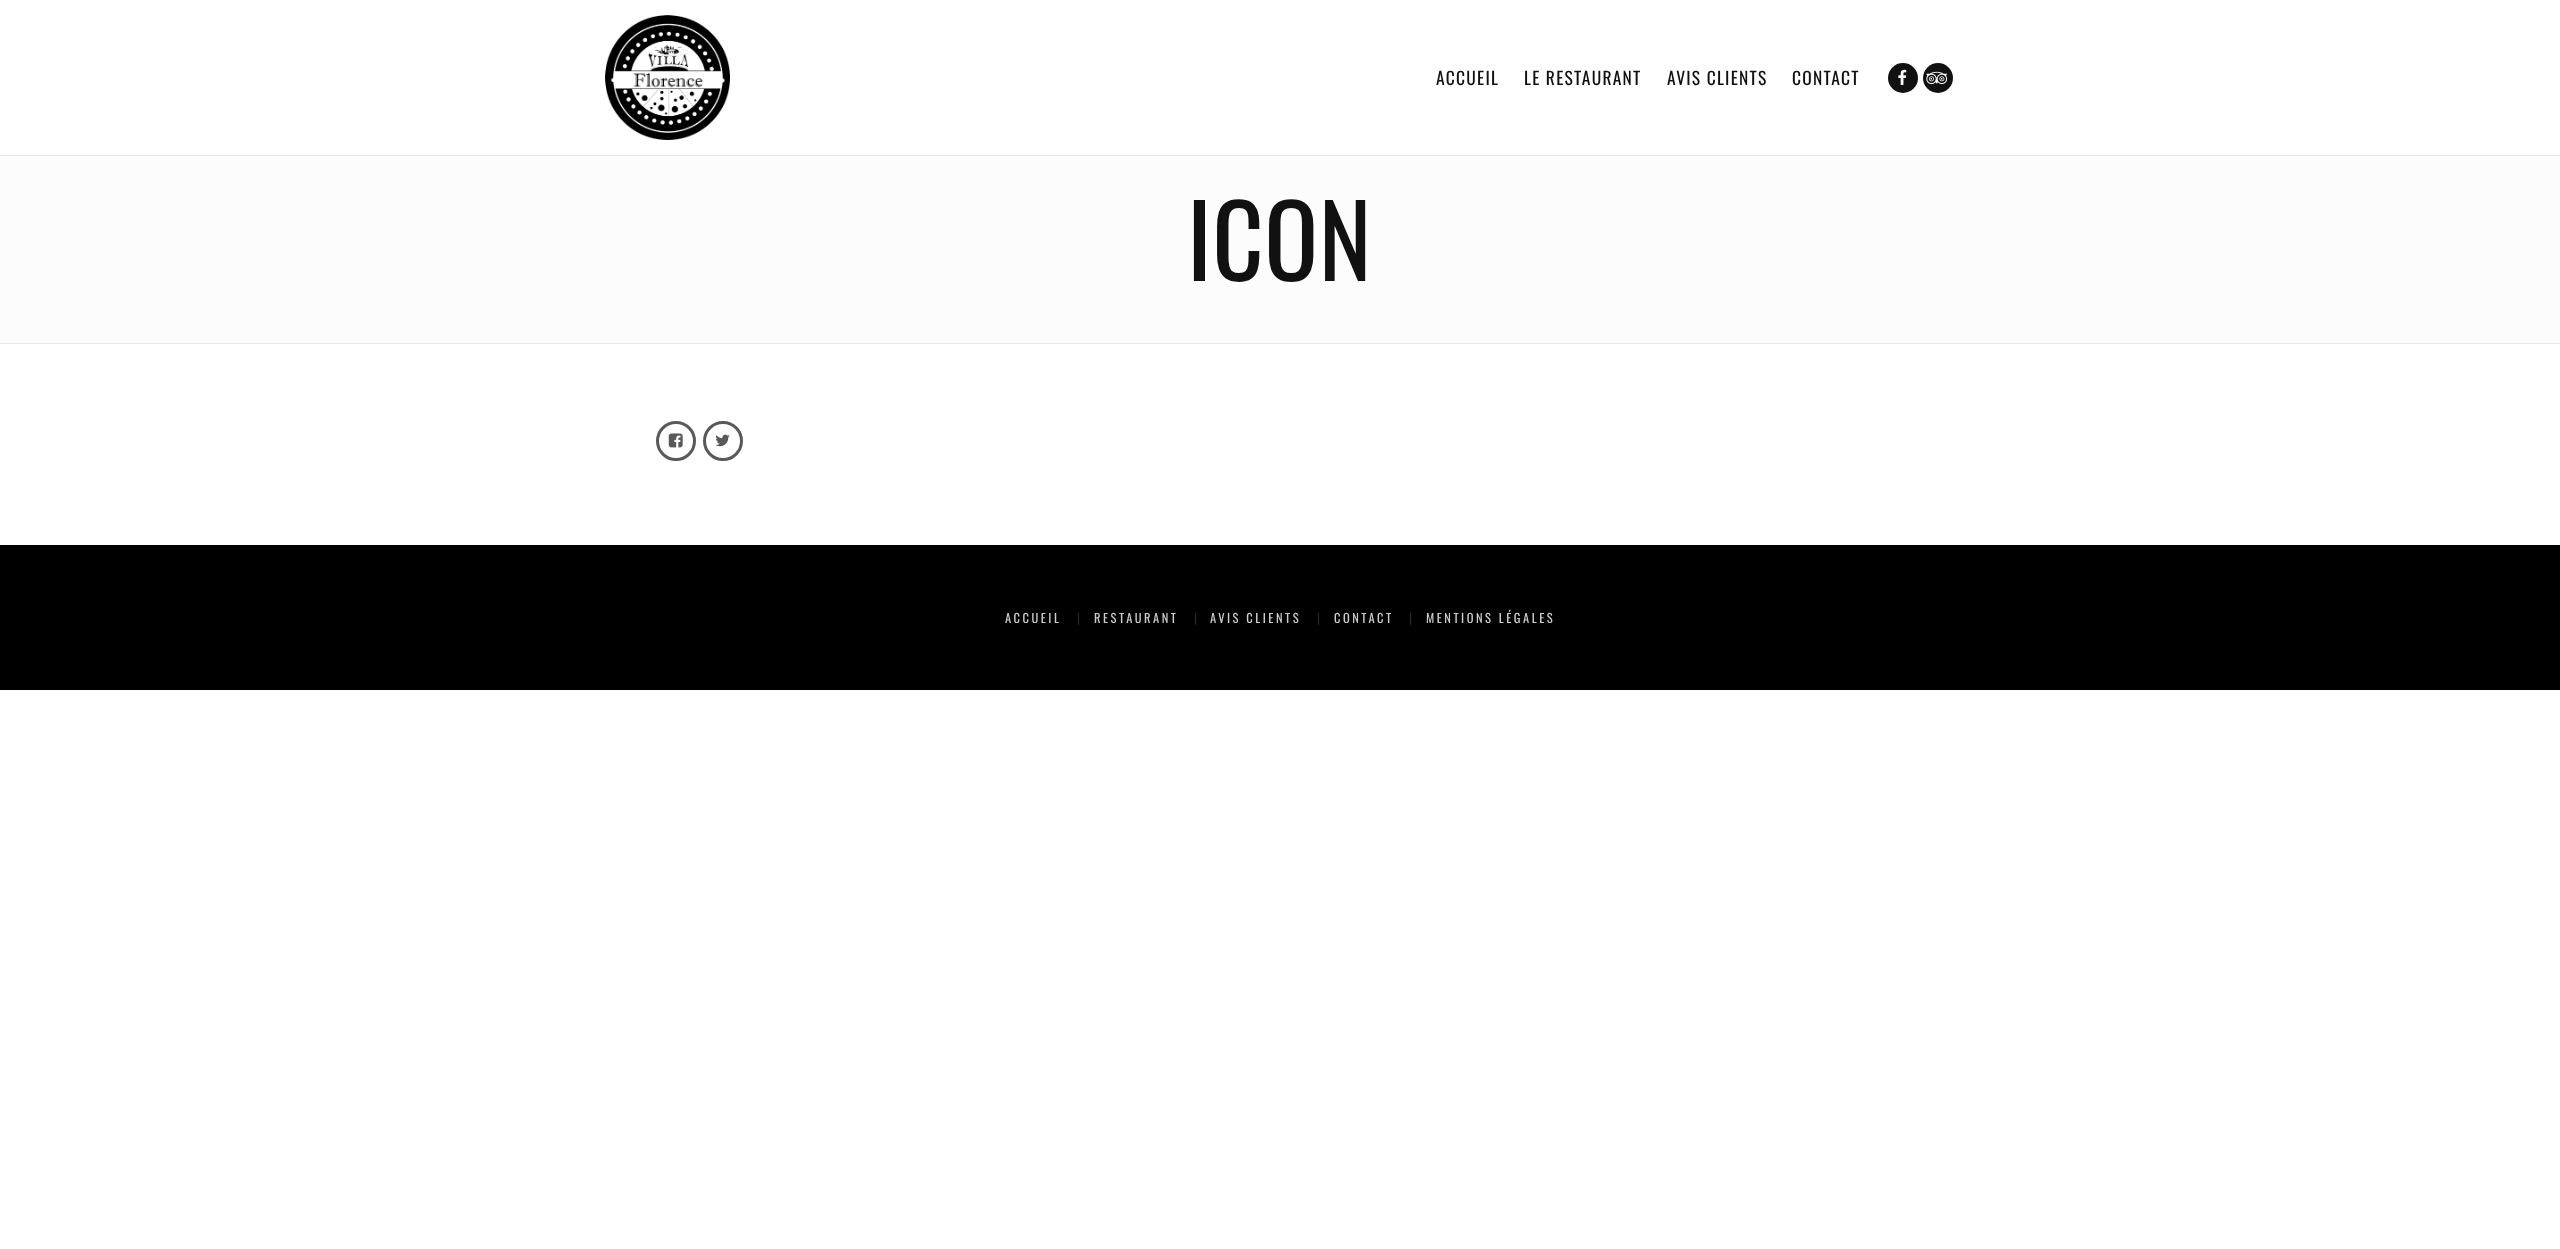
<svg xmlns="http://www.w3.org/2000/svg" width="2560" height="1249" viewBox="0 0 2560 1249">
  <rect width="100%" height="100%" fill="#ffffff"/>
  <image x="605" y="15" width="125" height="125" href="img1.png"/>
  <text x="1436" y="85" font-family="Oswald" font-size="17.5" letter-spacing="1.25" fill="#111111">ACCUEIL</text>
  <text x="1524" y="85" font-family="Oswald" font-size="17.5" letter-spacing="1.25" fill="#111111">LE RESTAURANT</text>
  <text x="1667" y="85" font-family="Oswald" font-size="17.5" letter-spacing="1.25" fill="#111111">AVIS CLIENTS</text>
  <text x="1792" y="85" font-family="Oswald" font-size="17.5" letter-spacing="1.25" fill="#111111">CONTACT</text>
  <circle cx="1903" cy="78" r="15" fill="#111111"/>
  <image x="1898" y="69" width="9" height="16" href="img2.png"/>
  <circle cx="1938" cy="78" r="15" fill="#111111"/>
  <image x="1926" y="71" width="22" height="14" href="img3.png"/>
  <rect x="0" y="156" width="2560" height="187" fill="#fcfcfc"/>
  <rect x="0" y="155" width="2560" height="1" fill="#e9e9e9"/>
  <rect x="0" y="343" width="2560" height="1" fill="#e9e9e9"/>
  <text x="1187" y="281" font-family="Oswald" font-size="100" letter-spacing="0.5" fill="#111111">ICON</text>
  <circle cx="676" cy="441" r="18.5" fill="none" stroke="#595959" stroke-width="3"/>
  <image x="668" y="433" width="15" height="15" href="img4.png"/>
  <circle cx="723" cy="441" r="18.5" fill="none" stroke="#595959" stroke-width="3"/>
  <image x="715" y="434" width="15" height="13" href="img5.png"/>
  <rect x="0" y="545" width="2560" height="145" fill="#000000"/>
  <text x="1005" y="623" font-family="Oswald" font-size="12.5" letter-spacing="2.5" fill="#cccccc">ACCUEIL</text>
  <text x="1077" y="623" font-family="Oswald" font-size="12.5" letter-spacing="1.25" fill="#292929">|</text>
  <text x="1094" y="623" font-family="Oswald" font-size="12.5" letter-spacing="2.5" fill="#cccccc">RESTAURANT</text>
  <text x="1194" y="623" font-family="Oswald" font-size="12.5" letter-spacing="1.25" fill="#292929">|</text>
  <text x="1210" y="623" font-family="Oswald" font-size="12.5" letter-spacing="2.5" fill="#cccccc">AVIS CLIENTS</text>
  <text x="1317" y="623" font-family="Oswald" font-size="12.5" letter-spacing="1.25" fill="#292929">|</text>
  <text x="1334" y="623" font-family="Oswald" font-size="12.5" letter-spacing="2.5" fill="#cccccc">CONTACT</text>
  <text x="1409" y="623" font-family="Oswald" font-size="12.5" letter-spacing="1.25" fill="#292929">|</text>
  <text x="1426" y="623" font-family="Oswald" font-size="12.5" letter-spacing="2.5" fill="#cccccc">MENTIONS LÉGALES</text>
</svg>
